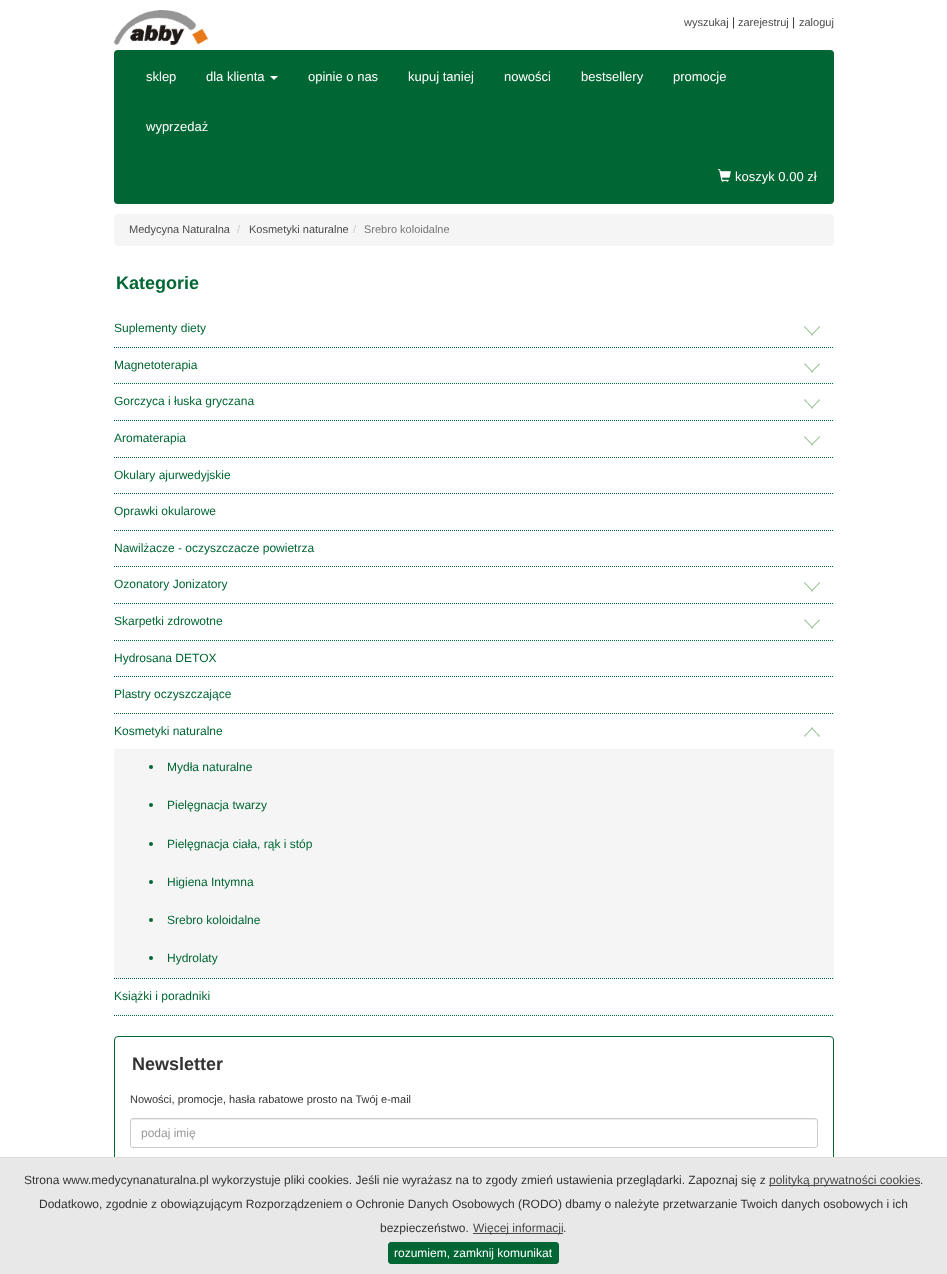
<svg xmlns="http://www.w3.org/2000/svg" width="947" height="1274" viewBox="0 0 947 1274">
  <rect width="100%" height="100%" fill="#ffffff"/>
  <image x="114" y="10" width="94" height="35" href="img1.png"/>
  <text x="684" y="26" font-family="Liberation Sans" font-size="11" fill="#4a4a4a">wyszukaj</text>
  <text x="732" y="26" font-family="Liberation Sans" font-size="12" fill="#333333">|</text>
  <text x="738" y="26" font-family="Liberation Sans" font-size="11" fill="#4a4a4a">zarejestruj</text>
  <text x="792" y="26" font-family="Liberation Sans" font-size="12" fill="#333333">|</text>
  <text x="799" y="26" font-family="Liberation Sans" font-size="11" fill="#4a4a4a">zaloguj</text>
  <rect x="115" y="51" width="718" height="152" rx="3" fill="#006633" stroke="#006633" stroke-width="2"/>
  <text x="146" y="81" font-family="Liberation Sans" font-size="13" fill="#ffffff">sklep</text>
  <text x="206" y="81" font-family="Liberation Sans" font-size="13" fill="#ffffff">dla klienta</text>
  <path d="M270 76H278L274 80Z" fill="#ffffff"/>
  <text x="308" y="81" font-family="Liberation Sans" font-size="13" fill="#ffffff">opinie o nas</text>
  <text x="408" y="81" font-family="Liberation Sans" font-size="13" fill="#ffffff">kupuj taniej</text>
  <text x="504" y="81" font-family="Liberation Sans" font-size="13" fill="#ffffff">nowości</text>
  <text x="581" y="81" font-family="Liberation Sans" font-size="13" fill="#ffffff">bestsellery</text>
  <text x="673" y="81" font-family="Liberation Sans" font-size="13" fill="#ffffff">promocje</text>
  <text x="146" y="131" font-family="Liberation Sans" font-size="13" fill="#ffffff">wyprzedaż</text>
  <image x="718" y="169" width="13" height="13" href="img2.png"/>
  <text x="735" y="181" font-family="Liberation Sans" font-size="13" fill="#ffffff">koszyk 0.00 zł</text>
  <rect x="114" y="214" width="720" height="32" rx="4" fill="#f5f5f5"/>
  <text x="129" y="233" font-family="Liberation Sans" font-size="11" fill="#4a4a4a">Medycyna Naturalna</text>
  <text x="237" y="233" font-family="Liberation Sans" font-size="11" fill="#cccccc">/</text>
  <text x="249" y="233" font-family="Liberation Sans" font-size="11" fill="#4a4a4a">Kosmetyki naturalne</text>
  <text x="353" y="233" font-family="Liberation Sans" font-size="11" fill="#cccccc">/</text>
  <text x="364" y="233" font-family="Liberation Sans" font-size="11" fill="#777777">Srebro koloidalne</text>
  <text x="116" y="289" font-family="Liberation Sans" font-size="18" font-weight="bold" fill="#006633">Kategorie</text>
  <image x="804" y="326" width="16" height="10" href="img3.png"/>
  <path d="M114 347.5H834" fill="none" stroke="#006633" stroke-dasharray="1 1"/>
  <text x="114" y="332" font-family="Liberation Sans" font-size="12" fill="#006633">Suplementy diety</text>
  <image x="804" y="363" width="16" height="10" href="img3.png"/>
  <path d="M114 383.5H834" fill="none" stroke="#006633" stroke-dasharray="1 1"/>
  <text x="114" y="369" font-family="Liberation Sans" font-size="12" fill="#006633">Magnetoterapia</text>
  <image x="804" y="399" width="16" height="10" href="img3.png"/>
  <path d="M114 420.5H834" fill="none" stroke="#006633" stroke-dasharray="1 1"/>
  <text x="114" y="405" font-family="Liberation Sans" font-size="12" fill="#006633">Gorczyca i łuska gryczana</text>
  <image x="804" y="436" width="16" height="10" href="img3.png"/>
  <path d="M114 457.5H834" fill="none" stroke="#006633" stroke-dasharray="1 1"/>
  <text x="114" y="442" font-family="Liberation Sans" font-size="12" fill="#006633">Aromaterapia</text>
  <path d="M114 493.5H834" fill="none" stroke="#006633" stroke-dasharray="1 1"/>
  <text x="114" y="479" font-family="Liberation Sans" font-size="12" fill="#006633">Okulary ajurwedyjskie</text>
  <path d="M114 530.5H834" fill="none" stroke="#006633" stroke-dasharray="1 1"/>
  <text x="114" y="515" font-family="Liberation Sans" font-size="12" fill="#006633">Oprawki okularowe</text>
  <path d="M114 566.5H834" fill="none" stroke="#006633" stroke-dasharray="1 1"/>
  <text x="114" y="552" font-family="Liberation Sans" font-size="12" fill="#006633">Nawilżacze - oczyszczacze powietrza</text>
  <image x="804" y="582" width="16" height="10" href="img3.png"/>
  <path d="M114 603.5H834" fill="none" stroke="#006633" stroke-dasharray="1 1"/>
  <text x="114" y="588" font-family="Liberation Sans" font-size="12" fill="#006633">Ozonatory Jonizatory</text>
  <image x="804" y="619" width="16" height="10" href="img3.png"/>
  <path d="M114 640.5H834" fill="none" stroke="#006633" stroke-dasharray="1 1"/>
  <text x="114" y="625" font-family="Liberation Sans" font-size="12" fill="#006633">Skarpetki zdrowotne</text>
  <path d="M114 676.5H834" fill="none" stroke="#006633" stroke-dasharray="1 1"/>
  <text x="114" y="662" font-family="Liberation Sans" font-size="12" fill="#006633">Hydrosana DETOX</text>
  <path d="M114 713.5H834" fill="none" stroke="#006633" stroke-dasharray="1 1"/>
  <text x="114" y="698" font-family="Liberation Sans" font-size="12" fill="#006633">Plastry oczyszczające</text>
  <path d="M114 978.5H834" fill="none" stroke="#006633" stroke-dasharray="1 1"/>
  <image x="804" y="727" width="16" height="10" href="img4.png"/>
  <text x="114" y="735" font-family="Liberation Sans" font-size="12" fill="#006633">Kosmetyki naturalne</text>
  <rect x="114" y="749" width="720" height="229" fill="#f5f5f5"/>
  <circle cx="151" cy="767" r="2" fill="#006633"/>
  <text x="167" y="771" font-family="Liberation Sans" font-size="12" fill="#006633">Mydła naturalne</text>
  <circle cx="151" cy="805" r="2" fill="#006633"/>
  <text x="167" y="809" font-family="Liberation Sans" font-size="12" fill="#006633">Pielęgnacja twarzy</text>
  <circle cx="151" cy="844" r="2" fill="#006633"/>
  <text x="167" y="848" font-family="Liberation Sans" font-size="12" fill="#006633">Pielęgnacja ciała, rąk i stóp</text>
  <circle cx="151" cy="882" r="2" fill="#006633"/>
  <text x="167" y="886" font-family="Liberation Sans" font-size="12" fill="#006633">Higiena Intymna</text>
  <circle cx="151" cy="920" r="2" fill="#006633"/>
  <text x="167" y="924" font-family="Liberation Sans" font-size="12" fill="#006633">Srebro koloidalne</text>
  <circle cx="151" cy="958" r="2" fill="#006633"/>
  <text x="167" y="962" font-family="Liberation Sans" font-size="12" fill="#006633">Hydrolaty</text>
  <path d="M114 1015.5H834" fill="none" stroke="#006633" stroke-dasharray="1 1"/>
  <text x="114" y="1000" font-family="Liberation Sans" font-size="12" fill="#006633">Książki i poradniki</text>
  <rect x="114.5" y="1036.5" width="719" height="221" rx="3.5" fill="none" stroke="#006633"/>
  <text x="132" y="1070" font-family="Liberation Sans" font-size="18" font-weight="bold" fill="#333333">Newsletter</text>
  <text x="130" y="1103" font-family="Liberation Sans" font-size="11" fill="#333333">Nowości, promocje, hasła rabatowe prosto na Twój e-mail</text>
  <path d="M133 1120H815C816 1120 817 1121 817 1122C817 1121 817 1119 815 1119H133C131 1119 131 1121 131 1122C131 1121 132 1120 133 1120Z" fill="#ececec"/>
  <rect x="130.5" y="1118.5" width="687" height="29" rx="2.5" fill="none" stroke="#cccccc"/>
  <text x="141" y="1137" font-family="Liberation Sans" font-size="12" fill="#999999">podaj imię</text>
  <rect x="0" y="1158" width="947" height="116" fill="#e8e8e8"/>
  <rect x="0" y="1157" width="947" height="1" fill="#dddddd"/>
  <text x="24" y="1184" font-family="Liberation Sans" font-size="12" fill="#333333">Strona www.medycynanaturalna.pl wykorzystuje pliki cookies. Jeśli nie wyrażasz na to zgody zmień ustawienia przeglądarki. Zapoznaj się z</text>
  <rect x="769" y="1185" width="151" height="1" fill="#4a4a4a"/>
  <text x="769" y="1184" font-family="Liberation Sans" font-size="12" fill="#4a4a4a">polityką prywatności cookies</text>
  <text x="920" y="1184" font-family="Liberation Sans" font-size="12" fill="#333333">.</text>
  <text x="39" y="1208" font-family="Liberation Sans" font-size="12" fill="#333333">Dodatkowo, zgodnie z obowiązującym Rozporządzeniem o Ochronie Danych Osobowych (RODO) dbamy o należyte przetwarzanie Twoich danych osobowych i ich</text>
  <text x="380" y="1232" font-family="Liberation Sans" font-size="12" fill="#333333">bezpieczeństwo.</text>
  <rect x="473" y="1233" width="90" height="1" fill="#4a4a4a"/>
  <text x="473" y="1232" font-family="Liberation Sans" font-size="12" fill="#4a4a4a">Więcej informacji</text>
  <text x="563" y="1232" font-family="Liberation Sans" font-size="12" fill="#333333">.</text>
  <rect x="388.5" y="1242.5" width="170" height="21" rx="2.5" fill="#006633" stroke="#006633"/>
  <text x="394" y="1257" font-family="Liberation Sans" font-size="12" fill="#ffffff">rozumiem, zamknij komunikat</text>
</svg>
